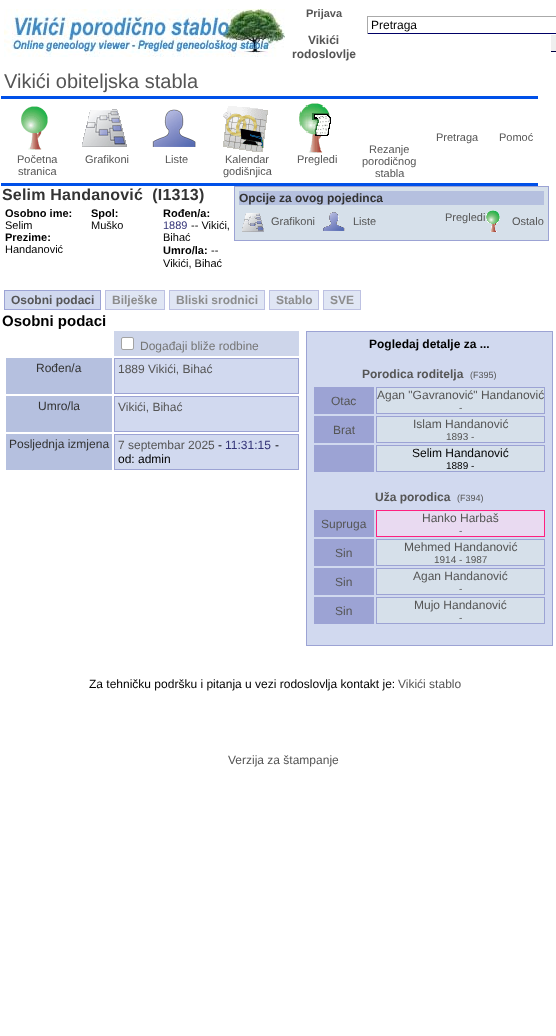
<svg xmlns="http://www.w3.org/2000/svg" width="556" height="1036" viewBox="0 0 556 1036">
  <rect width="100%" height="100%" fill="#ffffff"/>
  <image x="4" y="9" width="281" height="48" href="img1.png"/>
  <text x="306" y="17" font-family="Liberation Sans" font-size="11" font-weight="bold" fill="#555555">Prijava</text>
  <text x="308" y="44" font-family="Liberation Sans" font-size="12" font-weight="bold" fill="#555555">Vikići</text>
  <text x="292" y="58" font-family="Liberation Sans" font-size="12" font-weight="bold" fill="#555555">rodoslovlje</text>
  <rect x="367" y="16" width="189" height="1" fill="#aaaaaa"/>
  <rect x="367" y="33" width="189" height="1" fill="#000066"/>
  <rect x="367" y="16" width="1" height="18" fill="#aaaaaa"/>
  <text x="371" y="29" font-family="Liberation Sans" font-size="12" fill="#000000">Pretraga</text>
  <rect x="551" y="34" width="5" height="18" fill="#efefef"/>
  <rect x="550" y="34" width="6" height="1" fill="#ffffff"/>
  <rect x="550" y="51" width="6" height="1" fill="#000044"/>
  <rect x="550" y="51" width="1" height="1" fill="#ffffff"/>
  <text x="4" y="88" font-family="Liberation Sans" font-size="20" fill="#555555">Vikići obiteljska stabla</text>
  <rect x="1" y="96" width="537" height="3" fill="#0050e8"/>
  <text x="436" y="141" font-family="Liberation Sans" font-size="11" fill="#555555">Pretraga</text>
  <text x="499" y="141" font-family="Liberation Sans" font-size="11" fill="#555555">Pomoć</text>
  <image x="21" y="106" width="27" height="44" href="img2.png"/>
  <text x="17" y="163" font-family="Liberation Sans" font-size="11" fill="#555555">Početna</text>
  <text x="18" y="175" font-family="Liberation Sans" font-size="11" fill="#555555">stranica</text>
  <image x="82" y="109" width="45" height="38" href="img3.png"/>
  <text x="85" y="163" font-family="Liberation Sans" font-size="11" fill="#555555">Grafikoni</text>
  <image x="152" y="109" width="44" height="38" href="img4.png"/>
  <text x="165" y="163" font-family="Liberation Sans" font-size="11" fill="#555555">Liste</text>
  <image x="223" y="106" width="45" height="46" href="img5.png"/>
  <text x="225" y="163" font-family="Liberation Sans" font-size="11" fill="#555555">Kalendar</text>
  <text x="223" y="175" font-family="Liberation Sans" font-size="11" fill="#555555">godišnjica</text>
  <image x="299" y="103" width="32" height="50" href="img6.png"/>
  <text x="297" y="163" font-family="Liberation Sans" font-size="11" fill="#555555">Pregledi</text>
  <text x="369" y="153" font-family="Liberation Sans" font-size="11" fill="#555555">Rezanje</text>
  <text x="362" y="165" font-family="Liberation Sans" font-size="11" fill="#555555">porodičnog</text>
  <text x="375" y="177" font-family="Liberation Sans" font-size="11" fill="#555555">stabla</text>
  <rect x="1" y="183" width="537" height="3" fill="#0050e8"/>
  <text x="2" y="200" font-family="Liberation Sans" font-size="16" font-weight="bold" letter-spacing="0.2" fill="#333333" xml:space="preserve">Selim Handanović  (I1313)</text>
  <text x="5" y="217" font-family="Liberation Sans" font-size="11" font-weight="bold" fill="#000000">Osobno ime:</text>
  <text x="5" y="229" font-family="Liberation Sans" font-size="11" fill="#000000">Selim</text>
  <text x="5" y="241" font-family="Liberation Sans" font-size="11" font-weight="bold" fill="#000000">Prezime:</text>
  <text x="5" y="253" font-family="Liberation Sans" font-size="11" fill="#000000">Handanović</text>
  <text x="91" y="217" font-family="Liberation Sans" font-size="11" font-weight="bold" fill="#000000">Spol:</text>
  <text x="91" y="229" font-family="Liberation Sans" font-size="11" fill="#000000">Muško</text>
  <text x="163" y="217" font-family="Liberation Sans" font-size="11" font-weight="bold" fill="#000000">Rođen/a:</text>
  <text x="163" y="229" font-family="Liberation Sans" font-size="11" fill="#333377">1889</text>
  <text x="191" y="229" font-family="Liberation Sans" font-size="11" fill="#000000">-- Vikići,</text>
  <text x="163" y="241" font-family="Liberation Sans" font-size="11" fill="#000000">Bihać</text>
  <text x="163" y="254" font-family="Liberation Sans" font-size="11" font-weight="bold" fill="#000000">Umro/la:</text>
  <text x="211" y="254" font-family="Liberation Sans" font-size="11" fill="#000000">--</text>
  <text x="163" y="267" font-family="Liberation Sans" font-size="11" fill="#000000">Vikići, Bihać</text>
  <rect x="234.5" y="186.5" width="314" height="54" fill="#d6e0ea" stroke="#9ca3d4"/>
  <rect x="239" y="191" width="305" height="14" fill="#b5c0df"/>
  <text x="239" y="202" font-family="Liberation Sans" font-size="12" font-weight="bold" fill="#333333">Opcije za ovog pojedinca</text>
  <image x="242" y="213" width="22" height="19" href="img7.png"/>
  <text x="271" y="225" font-family="Liberation Sans" font-size="11" fill="#555555">Grafikoni</text>
  <image x="323" y="212" width="22" height="19" href="img8.png"/>
  <text x="353" y="225" font-family="Liberation Sans" font-size="11" fill="#555555">Liste</text>
  <text x="445" y="221" font-family="Liberation Sans" font-size="11" fill="#555555">Pregledi</text>
  <image x="486" y="210" width="14" height="22" href="img9.png"/>
  <text x="512" y="225" font-family="Liberation Sans" font-size="11" fill="#555555">Ostalo</text>
  <rect x="4.5" y="290.5" width="96" height="19" fill="#d1d9ef" stroke="#9ca3d4"/>
  <text x="11" y="304" font-family="Liberation Sans" font-size="12" font-weight="bold" fill="#555555">Osobni podaci</text>
  <rect x="105.5" y="290.5" width="59" height="19" fill="#e0e6f4" stroke="#bdc1e2"/>
  <text x="112" y="304" font-family="Liberation Sans" font-size="12" font-weight="bold" fill="#8d8d8d">Bilješke</text>
  <rect x="169.5" y="290.5" width="95" height="19" fill="#e0e6f4" stroke="#bdc1e2"/>
  <text x="176" y="304" font-family="Liberation Sans" font-size="12" font-weight="bold" fill="#8d8d8d">Bliski srodnici</text>
  <rect x="269.5" y="290.5" width="49" height="19" fill="#e0e6f4" stroke="#bdc1e2"/>
  <text x="276" y="304" font-family="Liberation Sans" font-size="12" font-weight="bold" fill="#8d8d8d">Stablo</text>
  <rect x="323.5" y="290.5" width="37" height="19" fill="#e0e6f4" stroke="#bdc1e2"/>
  <text x="330" y="304" font-family="Liberation Sans" font-size="12" font-weight="bold" fill="#8d8d8d">SVE</text>
  <text x="2" y="326" font-family="Liberation Sans" font-size="15" font-weight="bold" fill="#000000">Osobni podaci</text>
  <rect x="114" y="331" width="185" height="25" fill="#cdd5ea"/>
  <rect x="121.5" y="337.5" width="12" height="12" rx="1.5" fill="#ffffff" stroke="#a3a3a3"/>
  <text x="140" y="350" font-family="Liberation Sans" font-size="12" fill="#767676">Događaji bliže rodbine</text>
  <rect x="6" y="358" width="106" height="36" fill="#b5c0df"/>
  <text x="36" y="372" font-family="Liberation Sans" font-size="12" fill="#333333">Rođen/a</text>
  <rect x="114.5" y="358.5" width="184" height="35" fill="#d1d9ef" stroke="#9ca3d4"/>
  <text x="118" y="373" font-family="Liberation Sans" font-size="12" fill="#555555">1889 Vikići, Bihać</text>
  <rect x="6" y="396" width="106" height="36" fill="#b5c0df"/>
  <text x="38" y="410" font-family="Liberation Sans" font-size="12" fill="#333333">Umro/la</text>
  <rect x="114.5" y="396.5" width="184" height="35" fill="#d1d9ef" stroke="#9ca3d4"/>
  <text x="118" y="411" font-family="Liberation Sans" font-size="12" fill="#555555">Vikići, Bihać</text>
  <rect x="6" y="434" width="106" height="36" fill="#b5c0df"/>
  <text x="9" y="448" font-family="Liberation Sans" font-size="12" fill="#333333">Posljednja izmjena</text>
  <rect x="114.5" y="434.5" width="184" height="35" fill="#d1d9ef" stroke="#9ca3d4"/>
  <text x="118" y="449" font-family="Liberation Sans" font-size="12" fill="#555555">7 septembar 2025</text>
  <text x="218" y="449" font-family="Liberation Sans" font-size="12" fill="#000000">-</text>
  <text x="225" y="449" font-family="Liberation Sans" font-size="12" fill="#333377">11:31:15</text>
  <text x="275" y="449" font-family="Liberation Sans" font-size="12" fill="#000000">-</text>
  <text x="118" y="463" font-family="Liberation Sans" font-size="12" fill="#000000">od: admin</text>
  <rect x="306.5" y="331.5" width="246" height="314" fill="#d1d9ef" stroke="#9ca3d4"/>
  <text x="369" y="348" font-family="Liberation Sans" font-size="12" font-weight="bold" fill="#000000">Pogledaj detalje za ...</text>
  <text x="362" y="378" font-family="Liberation Sans" font-size="12" font-weight="bold" fill="#555555">Porodica roditelja</text>
  <text x="470" y="378" font-family="Liberation Sans" font-size="9" fill="#555555">(F395)</text>
  <rect x="314" y="387" width="60" height="27" fill="#9ca3d4"/>
  <text x="331" y="405" font-family="Liberation Sans" font-size="12" fill="#555555">Otac</text>
  <rect x="376.5" y="387.5" width="168" height="26" fill="#d6e0ea" stroke="#9ca3d4"/>
  <text x="377" y="399" font-family="Liberation Sans" font-size="12" fill="#555555">Agan "Gavranović" Handanović</text>
  <text x="459" y="411" font-family="Liberation Sans" font-size="10" fill="#555555">-</text>
  <rect x="314" y="416" width="60" height="27" fill="#9ca3d4"/>
  <text x="333" y="434" font-family="Liberation Sans" font-size="12" fill="#555555">Brat</text>
  <rect x="376.5" y="416.5" width="168" height="26" fill="#d6e0ea" stroke="#9ca3d4"/>
  <text x="413" y="428" font-family="Liberation Sans" font-size="12" fill="#555555">Islam Handanović</text>
  <text x="446" y="440" font-family="Liberation Sans" font-size="10" fill="#555555">1893 -</text>
  <rect x="314" y="445" width="60" height="27" fill="#9ca3d4"/>
  <rect x="376.5" y="445.5" width="168" height="26" fill="#d6e0ea" stroke="#9ca3d4"/>
  <text x="412" y="457" font-family="Liberation Sans" font-size="12" fill="#000000">Selim Handanović</text>
  <text x="446" y="469" font-family="Liberation Sans" font-size="10" fill="#000000">1889 -</text>
  <text x="375" y="501" font-family="Liberation Sans" font-size="12" font-weight="bold" fill="#555555">Uža porodica</text>
  <text x="457" y="501" font-family="Liberation Sans" font-size="9" fill="#555555">(F394)</text>
  <rect x="314" y="510" width="60" height="27" fill="#9ca3d4"/>
  <text x="321" y="528" font-family="Liberation Sans" font-size="12" fill="#555555">Supruga</text>
  <rect x="376.5" y="510.5" width="168" height="26" fill="#e9daf1" stroke="#ff2080"/>
  <text x="422" y="522" font-family="Liberation Sans" font-size="12" fill="#555555">Hanko Harbaš</text>
  <text x="459" y="534" font-family="Liberation Sans" font-size="10" fill="#555555">-</text>
  <rect x="314" y="539" width="60" height="27" fill="#9ca3d4"/>
  <text x="335" y="557" font-family="Liberation Sans" font-size="12" fill="#555555">Sin</text>
  <rect x="376.5" y="539.5" width="168" height="26" fill="#d6e0ea" stroke="#9ca3d4"/>
  <text x="404" y="551" font-family="Liberation Sans" font-size="12" fill="#555555">Mehmed Handanović</text>
  <text x="434" y="563" font-family="Liberation Sans" font-size="10" fill="#555555">1914 - 1987</text>
  <rect x="314" y="568" width="60" height="27" fill="#9ca3d4"/>
  <text x="335" y="586" font-family="Liberation Sans" font-size="12" fill="#555555">Sin</text>
  <rect x="376.5" y="568.5" width="168" height="26" fill="#d6e0ea" stroke="#9ca3d4"/>
  <text x="413" y="580" font-family="Liberation Sans" font-size="12" fill="#555555">Agan Handanović</text>
  <text x="459" y="592" font-family="Liberation Sans" font-size="10" fill="#555555">-</text>
  <rect x="314" y="597" width="60" height="27" fill="#9ca3d4"/>
  <text x="335" y="615" font-family="Liberation Sans" font-size="12" fill="#555555">Sin</text>
  <rect x="376.5" y="597.5" width="168" height="26" fill="#d6e0ea" stroke="#9ca3d4"/>
  <text x="414" y="609" font-family="Liberation Sans" font-size="12" fill="#555555">Mujo Handanović</text>
  <text x="459" y="621" font-family="Liberation Sans" font-size="10" fill="#555555">-</text>
  <text x="89" y="688" font-family="Liberation Sans" font-size="12" fill="#000000">Za tehničku podršku i pitanja u vezi rodoslovlja kontakt je:</text>
  <text x="398" y="688" font-family="Liberation Sans" font-size="12" fill="#555555">Vikići stablo</text>
  <text x="228" y="764" font-family="Liberation Sans" font-size="12" fill="#555555">Verzija za štampanje</text>
</svg>
